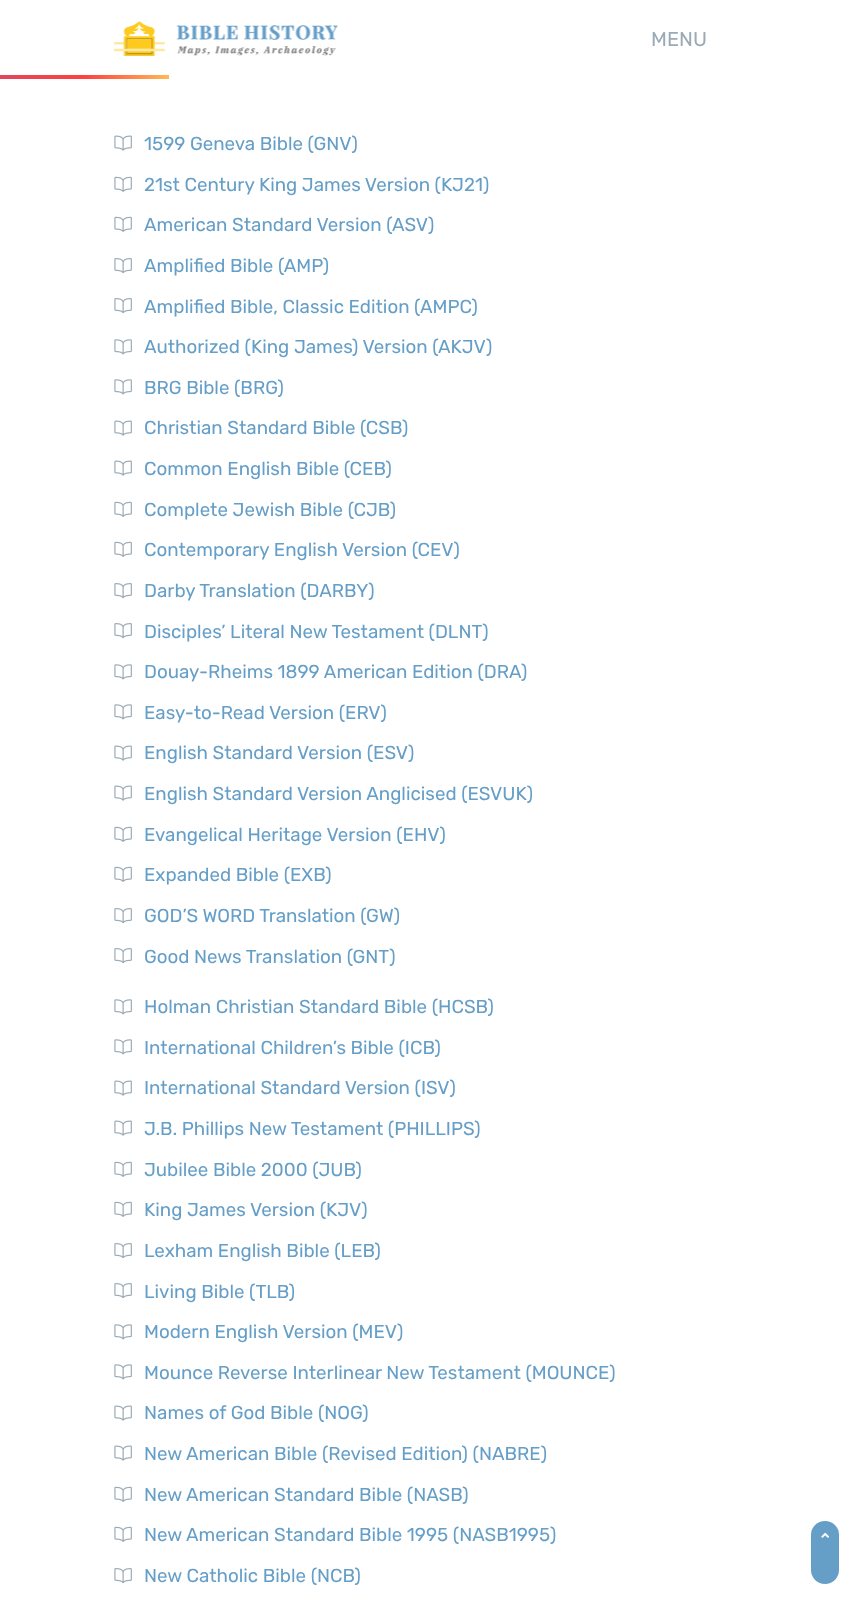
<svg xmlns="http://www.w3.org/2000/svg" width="863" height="1608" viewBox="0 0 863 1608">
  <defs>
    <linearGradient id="g1" gradientUnits="userSpaceOnUse" x1="0" y1="77" x2="169" y2="77"><stop offset="0" stop-color="#e2465c"/><stop offset="0.5" stop-color="#fe4141"/><stop offset="1" stop-color="#ffb957"/></linearGradient>
  </defs>
  <rect width="100%" height="100%" fill="#ffffff"/>
  <image x="113" y="21" width="225" height="35" href="img1.png"/>
  <text x="651" y="46" font-family="Rubik" font-size="20" fill="#9babb6">MENU</text>
  <rect x="0" y="75" width="169" height="4" fill="url(#g1)"/>
  <image x="114" y="135" width="18" height="16" href="img2.png"/>
  <text x="144" y="150" font-family="Rubik" font-size="18.75" fill="#659ec7">1599 Geneva Bible (GNV)</text>
  <image x="114" y="176" width="18" height="16" href="img3.png"/>
  <text x="144" y="191" font-family="Rubik" font-size="18.75" fill="#659ec7">21st Century King James Version (KJ21)</text>
  <image x="114" y="216" width="18" height="16" href="img3.png"/>
  <text x="144" y="231" font-family="Rubik" font-size="18.75" fill="#659ec7">American Standard Version (ASV)</text>
  <image x="114" y="258" width="18" height="16" href="img4.png"/>
  <text x="144" y="272" font-family="Rubik" font-size="18.75" fill="#659ec7">Amplified Bible (AMP)</text>
  <image x="114" y="298" width="18" height="16" href="img4.png"/>
  <text x="144" y="313" font-family="Rubik" font-size="18.75" fill="#659ec7">Amplified Bible, Classic Edition (AMPC)</text>
  <image x="114" y="339" width="18" height="16" href="img5.png"/>
  <text x="144" y="353" font-family="Rubik" font-size="18.75" fill="#659ec7">Authorized (King James) Version (AKJV)</text>
  <image x="114" y="379" width="18" height="16" href="img5.png"/>
  <text x="144" y="394" font-family="Rubik" font-size="18.75" fill="#659ec7">BRG Bible (BRG)</text>
  <image x="114" y="420" width="18" height="16" href="img2.png"/>
  <text x="144" y="434" font-family="Rubik" font-size="18.75" fill="#659ec7">Christian Standard Bible (CSB)</text>
  <image x="114" y="460" width="18" height="16" href="img2.png"/>
  <text x="144" y="475" font-family="Rubik" font-size="18.75" fill="#659ec7">Common English Bible (CEB)</text>
  <image x="114" y="501" width="18" height="16" href="img3.png"/>
  <text x="144" y="516" font-family="Rubik" font-size="18.75" fill="#659ec7">Complete Jewish Bible (CJB)</text>
  <image x="114" y="541" width="18" height="16" href="img3.png"/>
  <text x="144" y="556" font-family="Rubik" font-size="18.75" fill="#659ec7">Contemporary English Version (CEV)</text>
  <image x="114" y="583" width="18" height="16" href="img4.png"/>
  <text x="144" y="597" font-family="Rubik" font-size="18.75" fill="#659ec7">Darby Translation (DARBY)</text>
  <image x="114" y="623" width="18" height="16" href="img4.png"/>
  <text x="144" y="638" font-family="Rubik" font-size="18.75" fill="#659ec7">Disciples’ Literal New Testament (DLNT)</text>
  <image x="114" y="664" width="18" height="16" href="img5.png"/>
  <text x="144" y="678" font-family="Rubik" font-size="18.75" fill="#659ec7">Douay-Rheims 1899 American Edition (DRA)</text>
  <image x="114" y="704" width="18" height="16" href="img5.png"/>
  <text x="144" y="719" font-family="Rubik" font-size="18.75" fill="#659ec7">Easy-to-Read Version (ERV)</text>
  <image x="114" y="745" width="18" height="16" href="img2.png"/>
  <text x="144" y="759" font-family="Rubik" font-size="18.75" fill="#659ec7">English Standard Version (ESV)</text>
  <image x="114" y="785" width="18" height="16" href="img2.png"/>
  <text x="144" y="800" font-family="Rubik" font-size="18.75" fill="#659ec7">English Standard Version Anglicised (ESVUK)</text>
  <image x="114" y="826" width="18" height="16" href="img3.png"/>
  <text x="144" y="841" font-family="Rubik" font-size="18.75" fill="#659ec7">Evangelical Heritage Version (EHV)</text>
  <image x="114" y="866" width="18" height="16" href="img3.png"/>
  <text x="144" y="881" font-family="Rubik" font-size="18.75" fill="#659ec7">Expanded Bible (EXB)</text>
  <image x="114" y="908" width="18" height="16" href="img4.png"/>
  <text x="144" y="922" font-family="Rubik" font-size="18.75" fill="#659ec7">GOD’S WORD Translation (GW)</text>
  <image x="114" y="948" width="18" height="16" href="img4.png"/>
  <text x="144" y="963" font-family="Rubik" font-size="18.75" fill="#659ec7">Good News Translation (GNT)</text>
  <image x="114" y="999" width="18" height="16" href="img5.png"/>
  <text x="144" y="1013" font-family="Rubik" font-size="18.75" fill="#659ec7">Holman Christian Standard Bible (HCSB)</text>
  <image x="114" y="1039" width="18" height="16" href="img5.png"/>
  <text x="144" y="1054" font-family="Rubik" font-size="18.75" fill="#659ec7">International Children’s Bible (ICB)</text>
  <image x="114" y="1080" width="18" height="16" href="img2.png"/>
  <text x="144" y="1094" font-family="Rubik" font-size="18.75" fill="#659ec7">International Standard Version (ISV)</text>
  <image x="114" y="1120" width="18" height="16" href="img2.png"/>
  <text x="144" y="1135" font-family="Rubik" font-size="18.75" fill="#659ec7">J.B. Phillips New Testament (PHILLIPS)</text>
  <image x="114" y="1161" width="18" height="16" href="img3.png"/>
  <text x="144" y="1176" font-family="Rubik" font-size="18.75" fill="#659ec7">Jubilee Bible 2000 (JUB)</text>
  <image x="114" y="1201" width="18" height="16" href="img3.png"/>
  <text x="144" y="1216" font-family="Rubik" font-size="18.75" fill="#659ec7">King James Version (KJV)</text>
  <image x="114" y="1243" width="18" height="16" href="img4.png"/>
  <text x="144" y="1257" font-family="Rubik" font-size="18.75" fill="#659ec7">Lexham English Bible (LEB)</text>
  <image x="114" y="1283" width="18" height="16" href="img4.png"/>
  <text x="144" y="1298" font-family="Rubik" font-size="18.75" fill="#659ec7">Living Bible (TLB)</text>
  <image x="114" y="1324" width="18" height="16" href="img5.png"/>
  <text x="144" y="1338" font-family="Rubik" font-size="18.75" fill="#659ec7">Modern English Version (MEV)</text>
  <image x="114" y="1364" width="18" height="16" href="img5.png"/>
  <text x="144" y="1379" font-family="Rubik" font-size="18.75" fill="#659ec7">Mounce Reverse Interlinear New Testament (MOUNCE)</text>
  <image x="114" y="1405" width="18" height="16" href="img2.png"/>
  <text x="144" y="1419" font-family="Rubik" font-size="18.75" fill="#659ec7">Names of God Bible (NOG)</text>
  <image x="114" y="1445" width="18" height="16" href="img2.png"/>
  <text x="144" y="1460" font-family="Rubik" font-size="18.75" fill="#659ec7">New American Bible (Revised Edition) (NABRE)</text>
  <image x="114" y="1486" width="18" height="16" href="img3.png"/>
  <text x="144" y="1501" font-family="Rubik" font-size="18.75" fill="#659ec7">New American Standard Bible (NASB)</text>
  <image x="114" y="1526" width="18" height="16" href="img3.png"/>
  <text x="144" y="1541" font-family="Rubik" font-size="18.75" fill="#659ec7">New American Standard Bible 1995 (NASB1995)</text>
  <image x="114" y="1568" width="18" height="16" href="img4.png"/>
  <text x="144" y="1582" font-family="Rubik" font-size="18.75" fill="#659ec7">New Catholic Bible (NCB)</text>
  <rect x="811" y="1521" width="28" height="63" rx="14" fill="#659ec7"/>
  <image x="821" y="1532" width="8" height="6" href="img6.png"/>
</svg>
